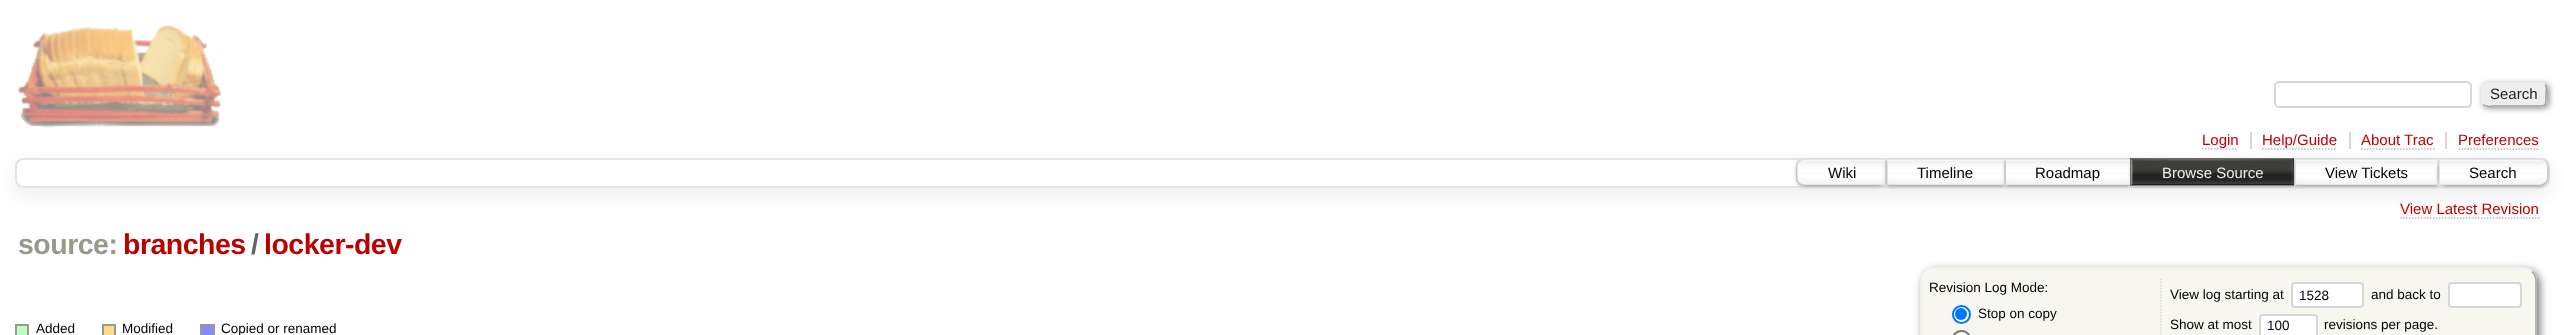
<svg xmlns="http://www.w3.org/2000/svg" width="2564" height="335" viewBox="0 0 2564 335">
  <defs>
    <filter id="blur1" x="-50%" y="-200%" width="200%" height="500%"><feGaussianBlur stdDeviation="3"/></filter>
    <clipPath id="clip1"><path d="M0 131H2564V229H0ZM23 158H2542C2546.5 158 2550 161.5 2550 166V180C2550 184.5 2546.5 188 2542 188H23C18.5 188 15 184.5 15 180V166C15 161.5 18.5 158 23 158Z" clip-rule="evenodd"/></clipPath>
    <filter id="blur2" x="-50%" y="-200%" width="200%" height="500%"><feGaussianBlur stdDeviation="11"/></filter>
    <clipPath id="clip2"><path d="M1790 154H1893V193H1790ZM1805 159H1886V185H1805C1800.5 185 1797 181.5 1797 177V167C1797 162.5 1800.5 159 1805 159Z" clip-rule="evenodd"/></clipPath>
    <filter id="blur3" x="-50%" y="-200%" width="200%" height="500%"><feGaussianBlur stdDeviation="2"/></filter>
    <clipPath id="clip3"><path d="M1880 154H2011V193H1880ZM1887 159H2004V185H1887Z" clip-rule="evenodd"/></clipPath>
    <clipPath id="clip4"><path d="M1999 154H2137V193H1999ZM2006 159H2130V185H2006Z" clip-rule="evenodd"/></clipPath>
    <clipPath id="clip5"><path d="M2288 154H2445V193H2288ZM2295 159H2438V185H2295Z" clip-rule="evenodd"/></clipPath>
    <clipPath id="clip6"><path d="M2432 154H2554V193H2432ZM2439 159H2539C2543.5 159 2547 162.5 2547 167V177C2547 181.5 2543.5 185 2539 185H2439Z" clip-rule="evenodd"/></clipPath>
    <filter id="blur4" x="-50%" y="-200%" width="200%" height="500%"><feGaussianBlur stdDeviation="4.5"/></filter>
  </defs>
  <rect width="100%" height="100%" fill="#ffffff"/>
  <image x="17" y="25" width="204" height="103" href="img1.png"/>
  <rect x="2275" y="82" width="196" height="25" rx="4" fill="none" stroke="#d7d7d7" stroke-width="2"/>
  <rect x="2483" y="84" width="66" height="24" rx="5" fill="#888888" filter="url(#blur1)"/>
  <rect x="2481" y="83" width="66" height="24" rx="5" fill="#eeeeee"/>
  <path d="M2545 84.5C2547.5 86.5 2546 91.5 2546 94.5C2546 107.5 2547 106 2533 106H2495C2494.5 106 2485.5 107.5 2483 104.5" fill="none" stroke="#9f9f9f" stroke-width="1.5"/>
  <path d="M2483 104.5C2480.5 102.5 2482 97.5 2482 94.5C2482 81.5 2481 83 2495 83H2533C2533.5 83 2542.5 81.5 2545 84.5" fill="none" stroke="#eeeeee" stroke-width="1.5"/>
  <text x="2490" y="99" font-family="Liberation Sans" font-size="15" fill="#222222">Search</text>
  <g clip-path="url(#clip1)">
    <rect x="15" y="165" width="2535" height="30" rx="8" fill="#eeeeee" filter="url(#blur2)"/>
  </g>
  <rect x="2250" y="132" width="2" height="17" fill="#d7d7d7"/>
  <path d="M2202 149H2238" fill="none" stroke="#bbbbbb" stroke-width="1.5" stroke-dasharray="1.5 1.5"/>
  <text x="2202" y="145" font-family="Liberation Sans" font-size="15" fill="#bb0000">Login</text>
  <rect x="2349" y="132" width="2" height="17" fill="#d7d7d7"/>
  <path d="M2262 149H2337" fill="none" stroke="#bbbbbb" stroke-width="1.5" stroke-dasharray="1.5 1.5"/>
  <text x="2262" y="145" font-family="Liberation Sans" font-size="15" fill="#bb0000">Help/Guide</text>
  <rect x="2445" y="132" width="2" height="17" fill="#d7d7d7"/>
  <text x="2361" y="145" font-family="Liberation Sans" font-size="15" fill="#bb0000">About Trac</text>
  <path d="M2361 149H2434.5" fill="none" stroke="#bbbbbb" stroke-width="1.5" stroke-dasharray="1.5 1.5"/>
  <text x="2458" y="145" font-family="Liberation Sans" font-size="15" fill="#bb0000">Preferences</text>
  <path d="M2458.5 149H2539.5" fill="none" stroke="#bbbbbb" stroke-width="1.5" stroke-dasharray="1.5 1.5"/>
  <rect x="16" y="159" width="2533" height="28" rx="7" fill="none" stroke="#e4e4e4" stroke-width="2"/>
  <path d="M1804 158H1887V186H1804C1799.5 186 1796 182.5 1796 178V166C1796 161.5 1799.5 158 1804 158Z" fill="#ffffff"/>
  <image x="1796" y="160" width="89" height="26" href="img2.png"/>
  <path d="M1804 159H1886V185H1804C1800 185 1797 182 1797 178V166C1797 162 1800 159 1804 159Z" fill="none" stroke="#e4e4e4" stroke-width="2"/>
  <g clip-path="url(#clip2)">
    <rect x="1797" y="161" width="89" height="25" rx="8" fill="#999999" filter="url(#blur3)"/>
  </g>
  <text x="1828" y="178" font-family="Liberation Sans" font-size="15" fill="#000000">Wiki</text>
  <rect x="1888" y="164" width="2" height="19" fill="#ffffff"/>
  <image x="1885" y="160" width="119" height="24" href="img3.png"/>
  <rect x="1887" y="159" width="118" height="26" fill="none" stroke="#e4e4e4" stroke-width="2"/>
  <g clip-path="url(#clip3)">
    <rect x="1887" y="161" width="117" height="25" fill="#999999" filter="url(#blur3)"/>
  </g>
  <text x="1917" y="178" font-family="Liberation Sans" font-size="15" fill="#000000">Timeline</text>
  <rect x="2006" y="160" width="2" height="24" fill="#ffffff"/>
  <image x="2006" y="160" width="124" height="24" href="img4.png"/>
  <rect x="2005" y="159" width="126" height="26" fill="none" stroke="#e4e4e4" stroke-width="2"/>
  <g clip-path="url(#clip4)">
    <rect x="2006" y="161" width="124" height="25" fill="#999999" filter="url(#blur3)"/>
  </g>
  <text x="2035" y="178" font-family="Liberation Sans" font-size="15" fill="#000000">Roadmap</text>
  <rect x="2131" y="159" width="163" height="26" fill="none" stroke="#666666" stroke-width="2"/>
  <rect x="2132" y="161" width="162" height="25" fill="#999999" filter="url(#blur3)"/>
  <rect x="2132" y="159" width="162" height="26" fill="#000000"/>
  <image x="2131" y="159" width="163" height="26" href="img5.png"/>
  <text x="2162" y="178" font-family="Liberation Sans" font-size="15" fill="#eeeeee">Browse Source</text>
  <rect x="2296" y="160" width="2" height="24" fill="#ffffff"/>
  <image x="2293" y="160" width="144" height="24" href="img6.png"/>
  <rect x="2295" y="159" width="143" height="26" fill="none" stroke="#e4e4e4" stroke-width="2"/>
  <g clip-path="url(#clip5)">
    <rect x="2295" y="161" width="143" height="25" fill="#999999" filter="url(#blur3)"/>
  </g>
  <text x="2325" y="178" font-family="Liberation Sans" font-size="15" fill="#000000">View Tickets</text>
  <path d="M2438 158H2541C2545.5 158 2549 161.5 2549 166V178C2549 182.5 2545.5 186 2541 186H2438Z" fill="#ffffff"/>
  <image x="2440" y="160" width="108" height="26" href="img7.png"/>
  <path d="M2439 159H2541C2545 159 2548 162 2548 166V178C2548 182 2545 185 2541 185H2439Z" fill="none" stroke="#e4e4e4" stroke-width="2"/>
  <g clip-path="url(#clip6)">
    <rect x="2439" y="161" width="108" height="25" rx="8" fill="#999999" filter="url(#blur3)"/>
  </g>
  <text x="2469" y="178" font-family="Liberation Sans" font-size="15" fill="#000000">Search</text>
  <text x="2400" y="214" font-family="Liberation Sans" font-size="15" fill="#bb0000">View Latest Revision</text>
  <path d="M2400 218H2539.5" fill="none" stroke="#bbbbbb" stroke-width="1.5" stroke-dasharray="1.5 1.5"/>
  <text x="18" y="254" font-family="Liberation Sans" font-size="28.5" font-weight="bold" letter-spacing="-0.5" fill="#999988">source:</text>
  <text x="123" y="254" font-family="Liberation Sans" font-size="28.5" font-weight="bold" letter-spacing="-0.5" fill="#bb0000">branches</text>
  <text x="251" y="254" font-family="Liberation Sans" font-size="28.5" font-weight="bold" letter-spacing="-0.5" fill="#666666">/</text>
  <text x="264" y="254" font-family="Liberation Sans" font-size="28.5" font-weight="bold" letter-spacing="-0.5" fill="#bb0000">locker-dev</text>
  <rect x="16" y="325" width="12" height="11" fill="#bbffbb" stroke="#999999" stroke-width="2"/>
  <text x="36" y="333" font-family="Liberation Sans" font-size="13.5" fill="#000000">Added</text>
  <rect x="103" y="325" width="12" height="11" fill="#ffdd88" stroke="#999999" stroke-width="2"/>
  <text x="122" y="333" font-family="Liberation Sans" font-size="13.5" fill="#000000">Modified</text>
  <rect x="201" y="325" width="13" height="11" fill="#8888ff" stroke="#999999" stroke-width="2"/>
  <text x="221" y="333" font-family="Liberation Sans" font-size="13.5" fill="#000000">Copied or renamed</text>
  <rect x="1923" y="270" width="617" height="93" rx="14" fill="#777777" filter="url(#blur4)"/>
  <rect x="1920" y="267" width="617" height="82" rx="14" fill="#f7f7f0"/>
  <path d="M2532 271.5C2534.5 274 2536 277 2536 280.5V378C2536 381.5 2534.5 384.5 2532 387C2529.5 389.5 2526.5 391 2523 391H1933.5C1930 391 1927 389.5 1924.5 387" fill="none" stroke="#9f9f9f" stroke-width="1.5"/>
  <path d="M1924.5 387C1922 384.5 1921 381.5 1921 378V280.5C1921 277 1922 274 1924.5 271.5C1927 269 1930 268 1933.5 268H2523C2526.5 268 2529.5 269 2532 271.5" fill="none" stroke="#eeeeee" stroke-width="1.5"/>
  <path d="M2161 279V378" fill="none" stroke="#d7d7d7" stroke-width="1.5" stroke-dasharray="1.5 1.5"/>
  <text x="1929" y="292" font-family="Liberation Sans" font-size="13.5" fill="#000000">Revision Log Mode:</text>
  <circle cx="1961.5" cy="314.5" r="8.5" fill="#ffffff" stroke="#0075ff" stroke-width="2"/>
  <circle cx="1961" cy="314" r="6" fill="#0075ff"/>
  <text x="1978" y="318" font-family="Liberation Sans" font-size="13.5" fill="#000000">Stop on copy</text>
  <rect x="1953" y="331" width="17" height="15" rx="8.5" fill="#ffffff" stroke="#767676" stroke-width="2"/>
  <text x="2170" y="299" font-family="Liberation Sans" font-size="13.5" fill="#000000">View log starting at</text>
  <rect x="2292" y="283" width="71" height="24" rx="3" fill="#ffffff" stroke="#d7d7d7" stroke-width="2"/>
  <text x="2299" y="300" font-family="Liberation Sans" font-size="13.5" fill="#000000">1528</text>
  <text x="2371" y="299" font-family="Liberation Sans" font-size="13.5" fill="#000000">and back to</text>
  <rect x="2449" y="283" width="72" height="24" rx="3" fill="#ffffff" stroke="#d7d7d7" stroke-width="2"/>
  <text x="2170" y="329" font-family="Liberation Sans" font-size="13.5" fill="#000000">Show at most</text>
  <rect x="2260" y="315" width="57" height="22" rx="3" fill="#ffffff" stroke="#d7d7d7" stroke-width="2"/>
  <text x="2267" y="330" font-family="Liberation Sans" font-size="13.5" fill="#000000">100</text>
  <text x="2324" y="329" font-family="Liberation Sans" font-size="13.5" fill="#000000">revisions per page.</text>
</svg>
